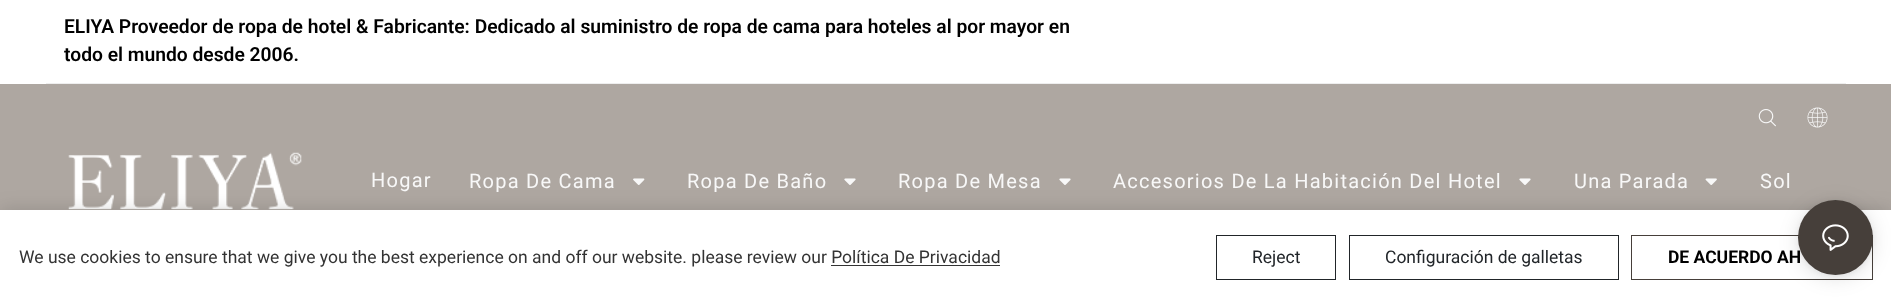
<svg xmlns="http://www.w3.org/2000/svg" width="1891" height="304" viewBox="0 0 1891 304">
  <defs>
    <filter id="blur1" x="-50%" y="-200%" width="200%" height="500%"><feGaussianBlur stdDeviation="9.5"/></filter>
    <filter id="blur2" x="-50%" y="-200%" width="200%" height="500%"><feGaussianBlur stdDeviation="10"/></filter>
    <filter id="blur3" x="-50%" y="-200%" width="200%" height="500%"><feGaussianBlur stdDeviation="2.5"/></filter>
  </defs>
  <rect width="100%" height="100%" fill="#aea7a1"/>
  <rect x="0" y="0" width="1891" height="84" fill="#ffffff"/>
  <rect x="46" y="83" width="1800" height="1" fill="#eeeeee"/>
  <text x="64" y="33" font-family="Roboto" font-size="19.25" font-weight="600" fill="#000000">ELIYA Proveedor de ropa de hotel &amp; Fabricante: Dedicado al suministro de ropa de cama para hoteles al por mayor en</text>
  <text x="64" y="61" font-family="Roboto" font-size="19.25" font-weight="600" fill="#000000">todo el mundo desde 2006.</text>
  <image x="1758" y="109" width="18" height="18" href="img1.png"/>
  <image x="1807" y="107" width="21" height="21" href="img2.png"/>
  <image x="68" y="152" width="234" height="58" href="img3.png"/>
  <text x="371" y="187" font-family="Roboto" font-size="20" letter-spacing="1.25" fill="#f8f8f8">Hogar</text>
  <text x="469" y="188" font-family="Roboto" font-size="20" letter-spacing="1.25" fill="#f8f8f8">Ropa De Cama</text>
  <image x="633" y="178" width="12" height="7" href="img4.png"/>
  <text x="687" y="188" font-family="Roboto" font-size="20" letter-spacing="1.25" fill="#f8f8f8">Ropa De Baño</text>
  <image x="844" y="178" width="12" height="7" href="img5.png"/>
  <text x="898" y="188" font-family="Roboto" font-size="20" letter-spacing="1.25" fill="#f8f8f8">Ropa De Mesa</text>
  <image x="1059" y="178" width="12" height="7" href="img5.png"/>
  <text x="1113" y="188" font-family="Roboto" font-size="20" letter-spacing="1.25" fill="#f8f8f8">Accesorios De La Habitación Del Hotel</text>
  <image x="1519" y="178" width="12" height="7" href="img5.png"/>
  <text x="1574" y="188" font-family="Roboto" font-size="20" letter-spacing="1.25" fill="#f8f8f8">Una Parada</text>
  <image x="1705" y="178" width="12" height="7" href="img6.png"/>
  <text x="1760" y="188" font-family="Roboto" font-size="20" letter-spacing="1.25" fill="#f8f8f8">Sol</text>
  <rect x="0" y="210" width="1891" height="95" fill="#000000" fill-opacity="0.15" filter="url(#blur1)"/>
  <rect x="0" y="210" width="1891" height="94" fill="#ffffff"/>
  <text x="19" y="263" font-family="Roboto" font-size="17.5" fill="#333333">We use cookies to ensure that we give you the best experience on and off our website. please review our Política De Privacidad</text>
  <rect x="831" y="265" width="169" height="1" fill="#333333"/>
  <rect x="1216.5" y="235.5" width="119" height="44" fill="none" stroke="#212529"/>
  <text x="1252" y="263" font-family="Roboto" font-size="17.5" fill="#212529">Reject</text>
  <rect x="1349.5" y="235.5" width="269" height="44" fill="none" stroke="#212529"/>
  <text x="1385" y="263" font-family="Roboto" font-size="17.5" fill="#212529">Configuración de galletas</text>
  <rect x="1631.5" y="235.5" width="241" height="44" fill="none" stroke="#463f3a"/>
  <text x="1668" y="263" font-family="Roboto" font-size="17.5" font-weight="bold" fill="#000000">DE ACUERDO AH</text>
  <rect x="1798" y="203" width="75" height="75" rx="37.5" fill="#000000" fill-opacity="0.12" filter="url(#blur2)"/>
  <rect x="1798" y="201" width="75" height="75" rx="37.5" fill="#000000" fill-opacity="0.06" filter="url(#blur3)"/>
  <circle cx="1835.5" cy="237.5" r="37.5" fill="#463f3a"/>
  <image x="1822" y="224" width="27" height="27" href="img7.png"/>
</svg>
